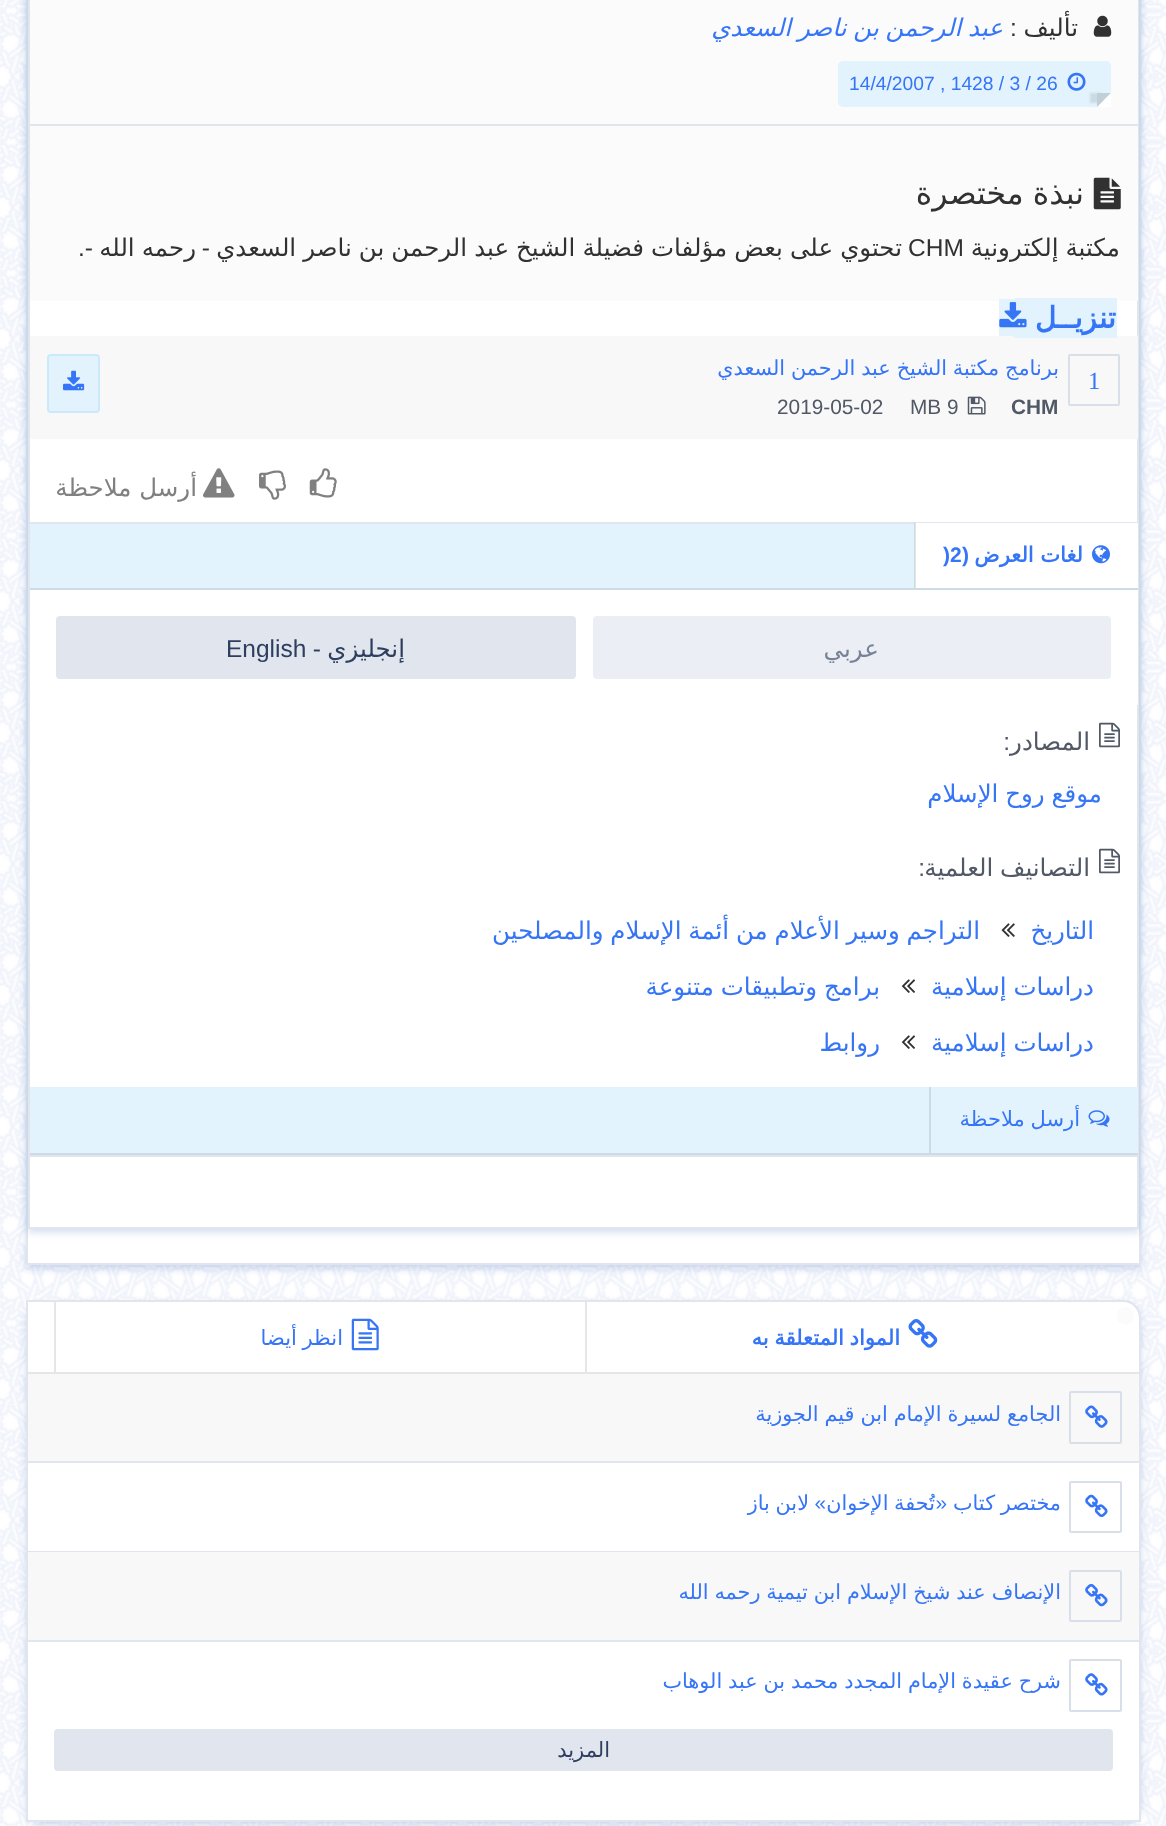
<svg xmlns="http://www.w3.org/2000/svg" width="1166" height="1826" viewBox="0 0 1166 1826">
  <defs>
    <filter id="blur1" x="-50%" y="-200%" width="200%" height="500%"><feGaussianBlur stdDeviation="3.5"/></filter>
    <clipPath id="clip1"><path d="M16 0H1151V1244H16ZM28-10H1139V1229H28Z" clip-rule="evenodd"/></clipPath>
    <clipPath id="clip2"><path d="M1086 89H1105V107H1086ZM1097 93H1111V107H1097Z" clip-rule="evenodd"/></clipPath>
    <filter id="blur2" x="-50%" y="-200%" width="200%" height="500%"><feGaussianBlur stdDeviation="1"/></filter>
    <clipPath id="clip3"><rect x="718" y="354" width="341" height="29"/></clipPath>
    <clipPath id="clip4"><rect x="46" y="1391" width="1015" height="39"/></clipPath>
    <clipPath id="clip5"><rect x="46" y="1570" width="1015" height="38"/></clipPath>
    <clipPath id="clip6"><rect x="46" y="1659" width="1015" height="39"/></clipPath>
  </defs>
  <rect width="100%" height="100%" fill="#ffffff"/>
  <image x="0" y="0" width="1166" height="1826" href="img1.png"/>
  <rect x="26" y="-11" width="1115" height="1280" fill="#1d4fb3" fill-opacity="0.2" filter="url(#blur1)"/>
  <rect x="28" y="301" width="1111" height="962" fill="#ffffff"/>
  <rect x="27" y="-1" width="1113" height="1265" fill="none" stroke="#e0e5ee" stroke-width="2"/>
  <g clip-path="url(#clip1)">
    <rect x="28" y="-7" width="1111" height="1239" fill="#1d4fb3" fill-opacity="0.2" filter="url(#blur1)"/>
  </g>
  <rect x="29" y="-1" width="1109" height="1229" fill="none" stroke="#e0e5ee" stroke-width="2"/>
  <rect x="30" y="0" width="1108" height="124" fill="#fbfbfb"/>
  <rect x="30" y="124" width="1108" height="2" fill="#e0e5ee"/>
  <image x="1093" y="15" width="19" height="22" href="img2.png"/>
  <text x="1078" y="36" font-family="DejaVu Sans" font-size="24.5" direction="rtl" fill="#313131">تأليف</text>
  <text x="1010" y="36" font-family="Liberation Sans" font-size="24.5" fill="#313131">:</text>
  <text x="1003" y="36" word-spacing="-1" font-family="DejaVu Sans" font-size="24.5" font-style="italic" direction="rtl" fill="#3575f6">عبد الرحمن بن ناصر السعدي</text>
  <rect x="838" y="61" width="273" height="46" rx="5" fill="#e3f3fd"/>
  <image x="1067" y="72" width="19" height="19" href="img3.png"/>
  <text x="849" y="90" font-family="Liberation Sans" font-size="19.25" fill="#3575f6">14/4/2007 , 1428 / 3 / 26</text>
  <g clip-path="url(#clip2)">
    <rect x="1090" y="93" width="11" height="10" fill="#000000" fill-opacity="0.1" filter="url(#blur2)"/>
  </g>
  <path d="M1097 93H1111L1104 100Z" fill="#c1cfd7"/>
  <path d="M1111 93V107L1104 100Z" fill="#ffffff"/>
  <path d="M1111 107H1097L1104 100Z" fill="#ffffff"/>
  <path d="M1097 107V93L1104 100Z" fill="#000000" fill-opacity="0.15"/>
  <rect x="30" y="126" width="1108" height="175" fill="#fbfbfb"/>
  <image x="1093" y="177" width="28" height="33" href="img4.png"/>
  <text x="1084" y="204" word-spacing="-1" font-family="DejaVu Sans" font-size="31.5" direction="rtl" fill="#313131">نبذة مختصرة</text>
  <text x="1120" y="256" word-spacing="-1" font-family="DejaVu Sans" font-size="24.5" direction="rtl" fill="#313131">مكتبة إلكترونية</text>
  <text x="908" y="256" font-family="Liberation Sans" font-size="24.5" fill="#313131">CHM</text>
  <text x="902" y="256" word-spacing="-0.75" font-family="DejaVu Sans" font-size="24.5" direction="rtl" fill="#313131">تحتوي على بعض مؤلفات فضيلة الشيخ عبد الرحمن بن ناصر السعدي</text>
  <text x="210" y="256" font-family="Liberation Sans" font-size="24.5" direction="rtl" fill="#313131">-</text>
  <text x="196" y="256" word-spacing="-0.75" font-family="DejaVu Sans" font-size="24.5" direction="rtl" fill="#313131">رحمه الله</text>
  <text x="93" y="256" font-family="Liberation Sans" font-size="24.5" direction="rtl" fill="#313131">-.</text>
  <rect x="30" y="336" width="1108" height="103" fill="#f8f8f8"/>
  <path d="M1017 298H1117V338H1017C1013 338 1010 335 1010 331V305C1010 301 1013 298 1017 298Z" fill="#e3f3fd"/>
  <path d="M999 299H1038C1042 299 1045 302 1045 306V329C1045 333 1042 336 1038 336H999Z" fill="#e3f3fd"/>
  <text x="1116" y="328" font-family="DejaVu Sans" font-size="29.5" font-weight="bold" direction="rtl" fill="#3575f6">تنزيــل</text>
  <image x="999" y="302" width="28" height="26" href="img5.png"/>
  <rect x="1069" y="355" width="50" height="50" rx="1" fill="none" stroke="#d9dfe9" stroke-width="2"/>
  <text x="1088" y="389" font-family="Liberation Serif" font-size="24.5" fill="#3575f6">1</text>
  <g clip-path="url(#clip3)">
    <text x="1059" y="375" word-spacing="-0.75" font-family="DejaVu Sans" font-size="20.8" direction="rtl" fill="#3575f6">برنامج مكتبة الشيخ عبد الرحمن السعدي</text>
  </g>
  <text x="1011" y="414" font-family="Liberation Sans" font-size="20.8" font-weight="bold" fill="#515866">CHM</text>
  <image x="967" y="396" width="19" height="19" href="img6.png"/>
  <text x="910" y="414" font-family="Liberation Sans" font-size="20.8" fill="#515866">MB 9</text>
  <text x="777" y="414" font-family="Liberation Sans" font-size="20.8" fill="#515866">2019-05-02</text>
  <rect x="48" y="355" width="51" height="57" rx="3" fill="#e3f3fd" stroke="#cbe9fb" stroke-width="2"/>
  <image x="63" y="370" width="22" height="21" href="img7.png"/>
  <image x="309" y="468" width="28" height="30" href="img8.png"/>
  <image x="259" y="470" width="27" height="30" href="img9.png"/>
  <image x="203" y="468" width="32" height="30" href="img10.png"/>
  <text x="197" y="496" font-family="DejaVu Sans" font-size="24.5" direction="rtl" fill="#808080">أرسل ملاحظة</text>
  <rect x="30" y="524" width="885" height="64" fill="#e3f3fd"/>
  <rect x="30" y="522" width="1108" height="2" fill="#e0e5ee"/>
  <rect x="30" y="588" width="1108" height="2" fill="#ccdbe4"/>
  <rect x="915" y="523" width="223" height="65" fill="#ffffff"/>
  <rect x="914" y="523" width="2" height="65" fill="#000000" fill-opacity="0.1"/>
  <image x="1092" y="545" width="18" height="19" href="img11.png"/>
  <text x="1083" y="562" font-family="DejaVu Sans" font-size="21" font-weight="bold" direction="rtl" fill="#3575f6">لغات العرض</text>
  <text x="969" y="562" font-family="Liberation Sans" font-size="21" font-weight="bold" direction="rtl" fill="#3575f6">(</text>
  <text x="943" y="562" font-family="Liberation Sans" font-size="21" font-weight="bold" fill="#3575f6">)2</text>
  <rect x="1137" y="590" width="1" height="115" fill="#ffffff"/>
  <rect x="594" y="617" width="516" height="61" rx="3" fill="#ebeef4" stroke="#ebeef4" stroke-width="2"/>
  <text x="879" y="657" font-family="DejaVu Sans" font-size="24.5" direction="rtl" fill="#778297">عربي</text>
  <rect x="57" y="617" width="518" height="61" rx="3" fill="#e0e5ee" stroke="#e0e5ee" stroke-width="2"/>
  <text x="405" y="657" font-family="DejaVu Sans" font-size="24.5" direction="rtl" fill="#2d3e5f">إنجليزي</text>
  <text x="321" y="657" font-family="Liberation Sans" font-size="24.5" direction="rtl" fill="#2d3e5f">-</text>
  <text x="226" y="657" font-family="Liberation Sans" font-size="24.5" fill="#2d3e5f">English</text>
  <image x="1099" y="722" width="21" height="26" href="img12.png"/>
  <text x="1090" y="750" font-family="DejaVu Sans" font-size="24.5" direction="rtl" fill="#515866">المصادر</text>
  <text x="1010" y="750" font-family="Liberation Sans" font-size="24.5" direction="rtl" fill="#515866">:</text>
  <text x="1102" y="802" word-spacing="-1" font-family="DejaVu Sans" font-size="24.5" direction="rtl" fill="#3575f6">موقع روح الإسلام</text>
  <image x="1099" y="848" width="21" height="26" href="img12.png"/>
  <text x="1090" y="876" word-spacing="-1" font-family="DejaVu Sans" font-size="24.5" direction="rtl" fill="#515866">التصانيف العلمية</text>
  <text x="925" y="876" font-family="Liberation Sans" font-size="24.5" direction="rtl" fill="#515866">:</text>
  <text x="1094" y="939" font-family="DejaVu Sans" font-size="24.5" direction="rtl" fill="#3575f6">التاريخ</text>
  <image x="1001" y="923" width="14" height="14" href="img13.png"/>
  <text x="980" y="939" word-spacing="-1" font-family="DejaVu Sans" font-size="24.5" direction="rtl" fill="#3575f6">التراجم وسير الأعلام من أئمة الإسلام والمصلحين</text>
  <text x="1094" y="995" word-spacing="-1" font-family="DejaVu Sans" font-size="24.5" direction="rtl" fill="#3575f6">دراسات إسلامية</text>
  <image x="901" y="979" width="14" height="14" href="img14.png"/>
  <text x="880" y="995" word-spacing="-1" font-family="DejaVu Sans" font-size="24.5" direction="rtl" fill="#3575f6">برامج وتطبيقات متنوعة</text>
  <text x="1094" y="1051" word-spacing="-1" font-family="DejaVu Sans" font-size="24.5" direction="rtl" fill="#3575f6">دراسات إسلامية</text>
  <image x="901" y="1035" width="14" height="14" href="img14.png"/>
  <text x="880" y="1051" font-family="DejaVu Sans" font-size="24.5" direction="rtl" fill="#3575f6">روابط</text>
  <rect x="30" y="1087" width="1108" height="66" fill="#e3f3fd"/>
  <rect x="30" y="1155" width="1108" height="2" fill="#e0e5ee"/>
  <rect x="30" y="1153" width="1108" height="2" fill="#ccdbe4"/>
  <rect x="929" y="1087" width="2" height="66" fill="#ccdbe4"/>
  <image x="1088" y="1110" width="22" height="17" href="img15.png"/>
  <text x="1080" y="1126" word-spacing="-1" font-family="DejaVu Sans" font-size="21" direction="rtl" fill="#3575f6">أرسل ملاحظة</text>
  <rect x="26" y="1304" width="1115" height="521" rx="18" fill="#1d4fb3" fill-opacity="0.2" filter="url(#blur1)"/>
  <path d="M27 1301H1123C1132.5 1301 1140 1308.5 1140 1318V1821H27Z" fill="#ffffff" stroke="#e0e5ee" stroke-width="2"/>
  <rect x="1117" y="1307" width="17" height="18" rx="8.5" fill="#fbfbfb"/>
  <rect x="28" y="1372" width="1111" height="2" fill="#e6e6e6"/>
  <rect x="585" y="1302" width="2" height="70" fill="#e6e6e6"/>
  <image x="908" y="1319" width="30" height="29" href="img16.png"/>
  <text x="900" y="1345" word-spacing="-1" font-family="DejaVu Sans" font-size="21" font-weight="bold" direction="rtl" fill="#3575f6">المواد المتعلقة به</text>
  <rect x="54" y="1302" width="2" height="70" fill="#e6e6e6"/>
  <image x="351" y="1318" width="28" height="33" href="img17.png"/>
  <text x="343" y="1345" word-spacing="-1" font-family="DejaVu Sans" font-size="21" direction="rtl" fill="#3575f6">انظر أيضا</text>
  <rect x="28" y="1374" width="1111" height="87" fill="#f8f8f8"/>
  <rect x="28" y="1461" width="1111" height="2" fill="#e0e5ee"/>
  <rect x="1070" y="1392" width="51" height="51" rx="1" fill="none" stroke="#d9dfe9" stroke-width="2"/>
  <image x="1085" y="1405" width="23" height="23" href="img18.png"/>
  <g clip-path="url(#clip4)">
    <text x="1061" y="1421" word-spacing="-0.75" font-family="DejaVu Sans" font-size="20.8" direction="rtl" fill="#3575f6">الجامع لسيرة الإمام ابن قيم الجوزية</text>
  </g>
  <rect x="28" y="1551" width="1111" height="1" fill="#e0e5ee"/>
  <rect x="1070" y="1482" width="51" height="50" rx="1" fill="none" stroke="#d9dfe9" stroke-width="2"/>
  <image x="1085" y="1494" width="23" height="23" href="img19.png"/>
  <text x="1061" y="1510" word-spacing="-1" font-family="DejaVu Sans" font-size="20.8" direction="rtl" fill="#3575f6">مختصر كتاب</text>
  <text x="935" y="1510" word-spacing="-1" font-family="DejaVu Sans" font-size="20.8" direction="rtl" fill="#3575f6">تُحفة الإخوان</text>
  <text x="947" y="1510" font-family="Liberation Sans" font-size="20.8" direction="rtl" fill="#3575f6">«</text>
  <text x="826" y="1510" font-family="Liberation Sans" font-size="20.8" direction="rtl" fill="#3575f6">»</text>
  <text x="809" y="1510" word-spacing="-1" font-family="DejaVu Sans" font-size="20.8" direction="rtl" fill="#3575f6">لابن باز</text>
  <rect x="28" y="1552" width="1111" height="88" fill="#f8f8f8"/>
  <rect x="28" y="1640" width="1111" height="2" fill="#e0e5ee"/>
  <rect x="1070" y="1571" width="51" height="50" rx="1" fill="none" stroke="#d9dfe9" stroke-width="2"/>
  <image x="1085" y="1584" width="23" height="23" href="img20.png"/>
  <g clip-path="url(#clip5)">
    <text x="1061" y="1599" word-spacing="-0.75" font-family="DejaVu Sans" font-size="20.8" direction="rtl" fill="#3575f6">الإنصاف عند شيخ الإسلام ابن تيمية رحمه الله</text>
  </g>
  <rect x="1070" y="1660" width="51" height="51" rx="1" fill="none" stroke="#d9dfe9" stroke-width="2"/>
  <image x="1085" y="1673" width="23" height="23" href="img21.png"/>
  <g clip-path="url(#clip6)">
    <text x="1061" y="1688" word-spacing="-0.75" font-family="DejaVu Sans" font-size="20.8" direction="rtl" fill="#3575f6">شرح عقيدة الإمام المجدد محمد بن عبد الوهاب</text>
  </g>
  <rect x="55" y="1730" width="1057" height="40" rx="3" fill="#e0e5ee" stroke="#e0e5ee" stroke-width="2"/>
  <text x="610" y="1757" font-family="DejaVu Sans" font-size="21" direction="rtl" fill="#2d3e5f">المزيد</text>
</svg>
